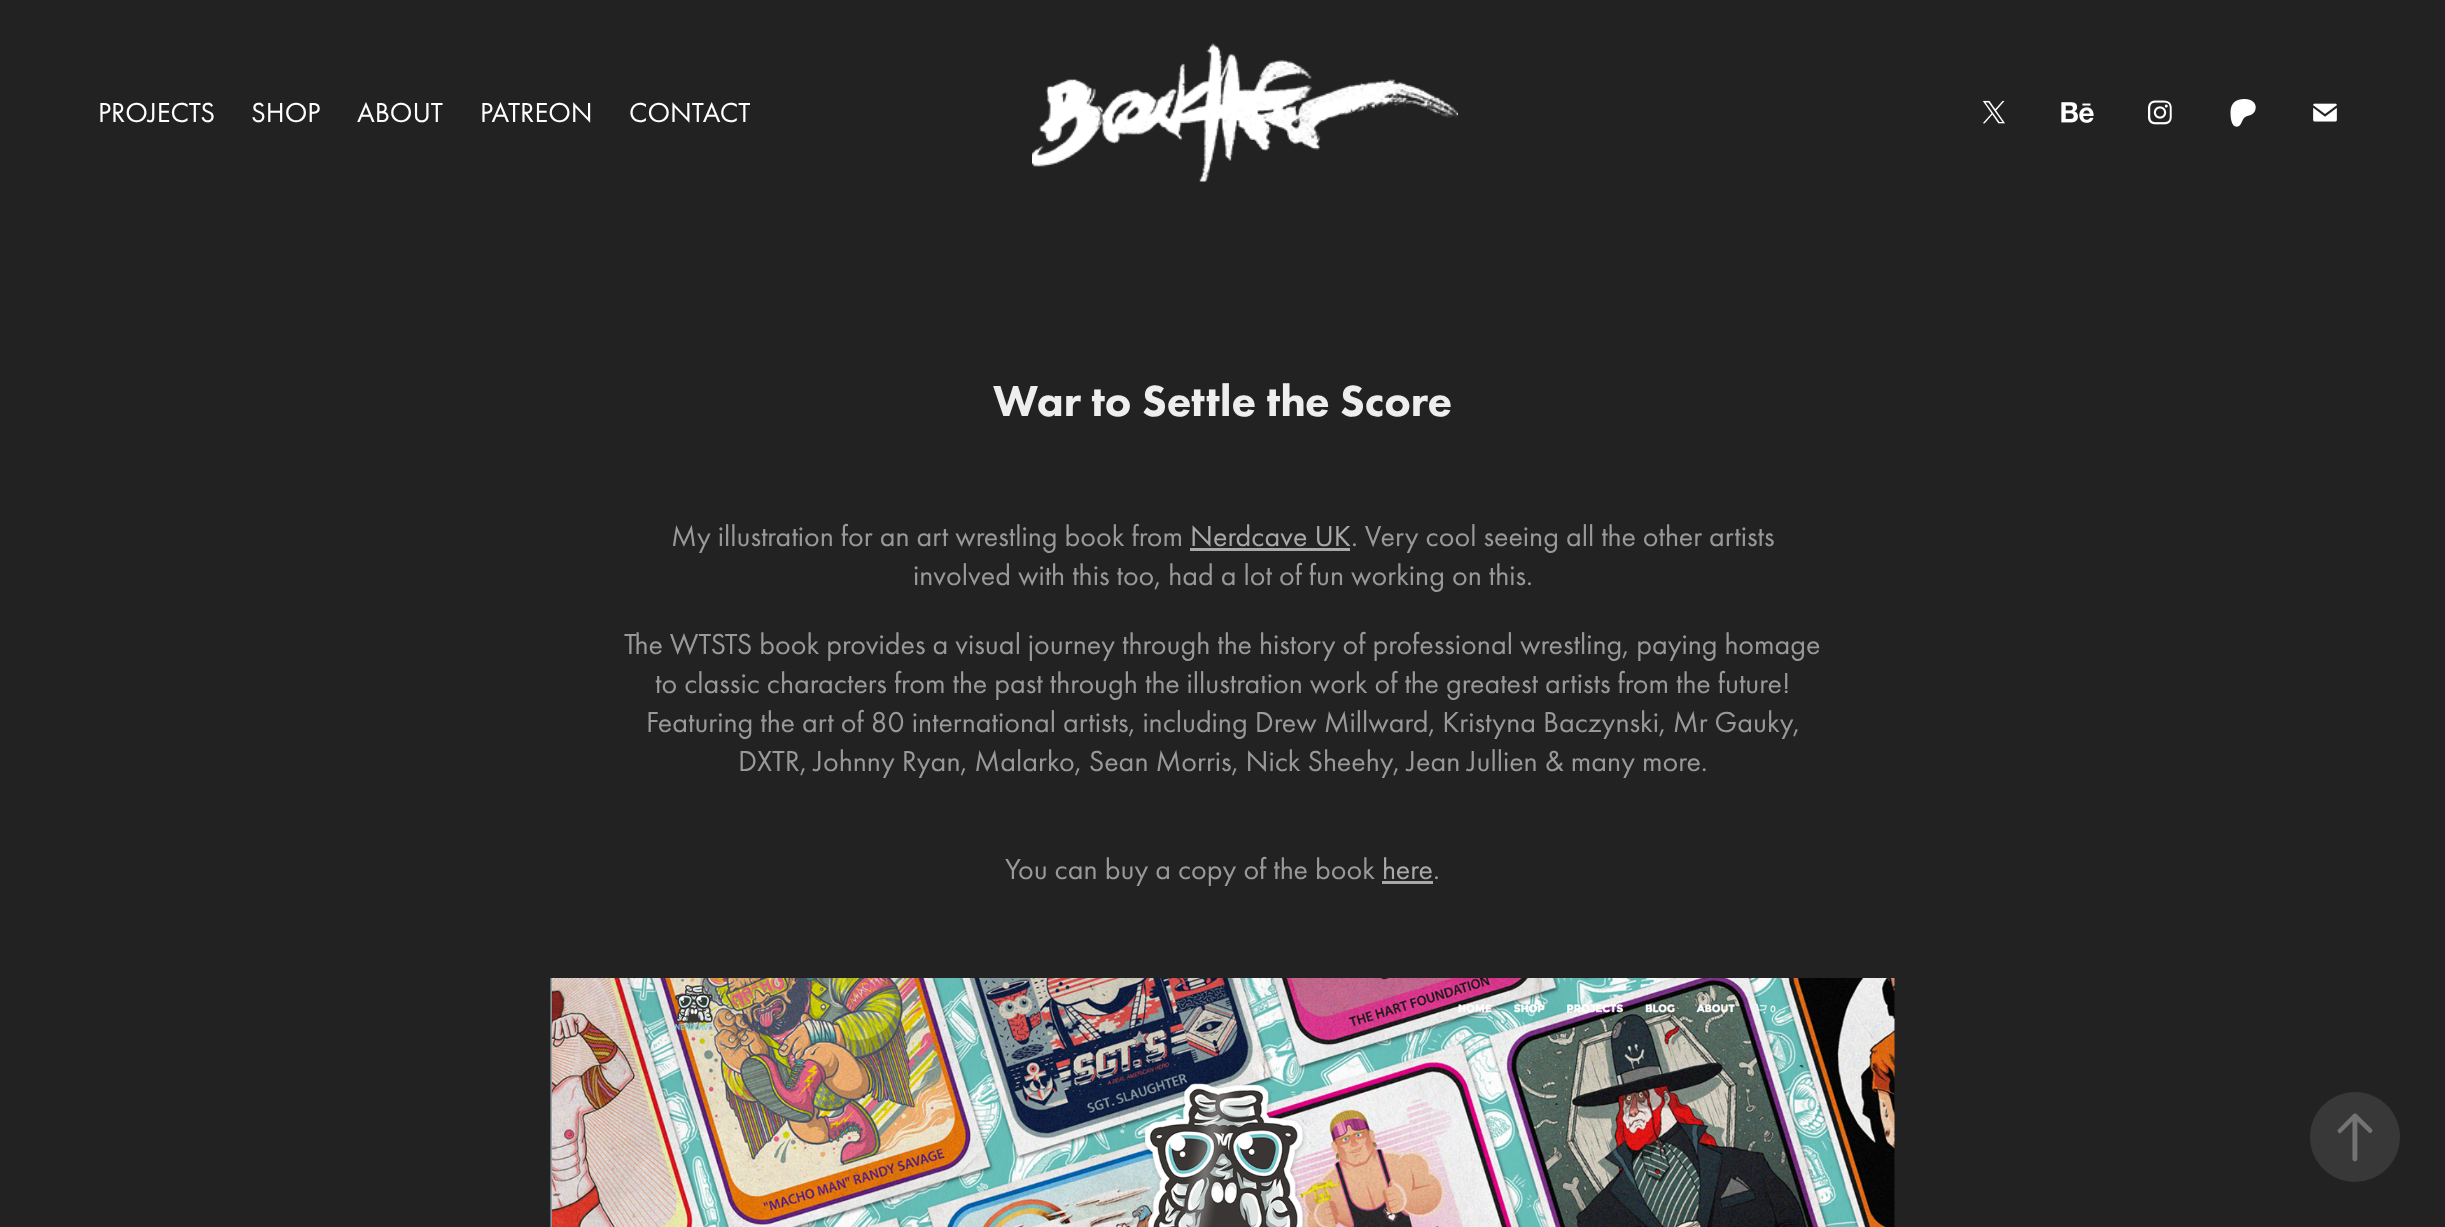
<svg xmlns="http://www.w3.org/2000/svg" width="2445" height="1227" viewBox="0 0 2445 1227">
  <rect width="100%" height="100%" fill="#222222"/>
  <text x="98" y="122" font-family="Futura PT" font-size="28.5" fill="#ffffff">PROJECTS</text>
  <text x="251" y="122" font-family="Futura PT" font-size="28.5" fill="#ffffff">SHOP</text>
  <text x="357" y="122" font-family="Futura PT" font-size="28.5" fill="#ffffff">ABOUT</text>
  <text x="480" y="122" font-family="Futura PT" font-size="28.5" fill="#ffffff">PATREON</text>
  <text x="629" y="122" font-family="Futura PT" font-size="28.5" fill="#ffffff">CONTACT</text>
  <image x="1032" y="43" width="426" height="139" href="img1.png"/>
  <image x="1982" y="100" width="23" height="24" href="img2.png"/>
  <image x="2061" y="102" width="33" height="21" href="img3.png"/>
  <image x="2148" y="100" width="24" height="25" href="img4.png"/>
  <image x="2230" y="99" width="26" height="28" href="img5.png"/>
  <image x="2313" y="103" width="24" height="19" href="img6.png"/>
  <text x="993" y="416" font-family="Futura PT" font-size="45" font-weight="900" fill="#eeeeee">War to Settle the Score</text>
  <text x="671" y="546" font-family="Futura PT" font-size="30" fill="#999999">My illustration for an art wrestling book from</text>
  <text x="1190" y="546" font-family="Futura PT" font-size="30" fill="#a9a9a9">Nerdcave UK</text>
  <text x="1351" y="546" font-family="Futura PT" font-size="30" fill="#999999">. Very cool seeing all the other artists</text>
  <rect x="1190" y="548" width="160" height="3" fill="#a9a9a9"/>
  <text x="913" y="585" font-family="Futura PT" font-size="30" fill="#999999">involved with this too, had a lot of fun working on this.</text>
  <text x="624" y="654" font-family="Futura PT" font-size="30" fill="#999999">The WTSTS book provides a visual journey through the history of professional wrestling, paying homage</text>
  <text x="655" y="693" font-family="Futura PT" font-size="30" fill="#999999">to classic characters from the past through the illustration work of the greatest artists from the future!</text>
  <text x="646" y="732" font-family="Futura PT" font-size="30" fill="#999999">Featuring the art of 80 international artists, including Drew Millward, Kristyna Baczynski, Mr Gauky,</text>
  <text x="738" y="771" font-family="Futura PT" font-size="30" fill="#999999">DXTR, Johnny Ryan, Malarko, Sean Morris, Nick Sheehy, Jean Jullien &amp; many more.</text>
  <text x="1005" y="879" font-family="Futura PT" font-size="30" fill="#999999">You can buy a copy of the book</text>
  <text x="1382" y="879" font-family="Futura PT" font-size="30" fill="#a9a9a9">here</text>
  <text x="1433" y="879" font-family="Futura PT" font-size="30" fill="#999999">.</text>
  <rect x="1382" y="881" width="51" height="3" fill="#a9a9a9"/>
  <image x="550" y="978" width="1345" height="249" href="img7.png"/>
  <circle cx="2355" cy="1137" r="45" fill="#383838"/>
  <image x="2337" y="1113" width="36" height="49" href="img8.png"/>
</svg>
